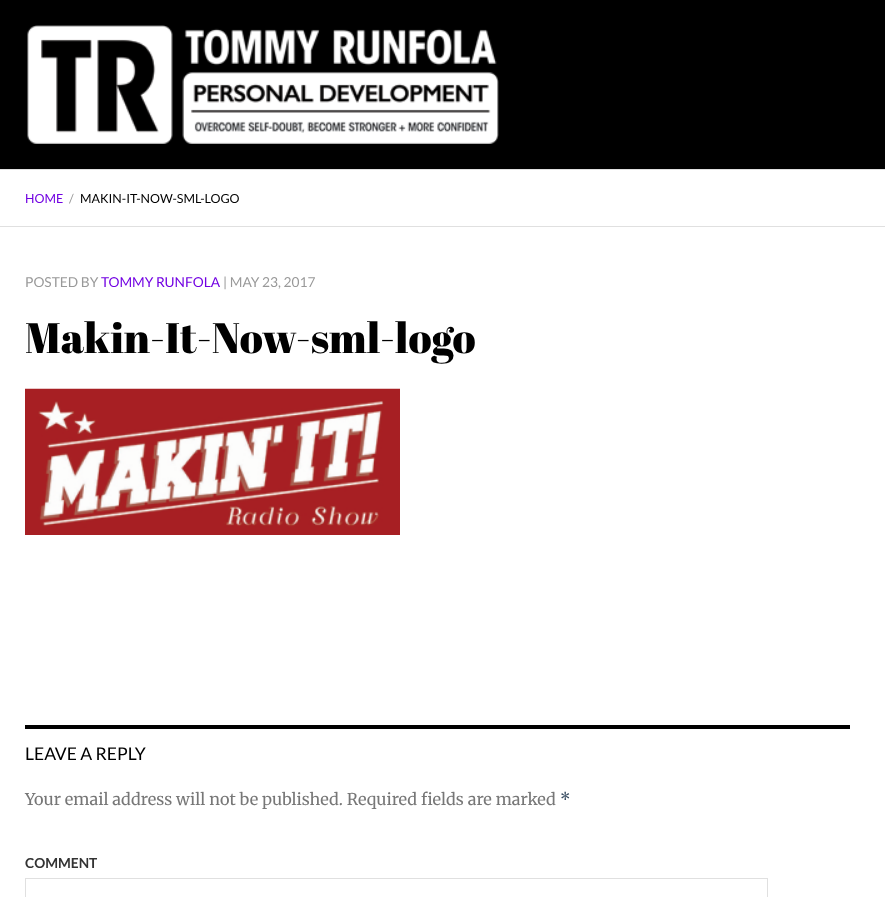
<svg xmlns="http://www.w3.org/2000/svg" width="885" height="897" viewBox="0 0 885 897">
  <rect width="100%" height="100%" fill="#ffffff"/>
  <rect x="0" y="0" width="885" height="169" fill="#000000"/>
  <rect x="0" y="169" width="885" height="1" fill="#e0e0e0"/>
  <image x="27" y="25" width="472" height="119" href="img1.png"/>
  <rect x="0" y="226" width="885" height="1" fill="#e0e0e0"/>
  <text x="25" y="203" font-family="Lato" font-size="12.5" fill="#7100e2">HOME</text>
  <text x="69" y="203" font-family="Lato" font-size="12.5" fill="#999999">/</text>
  <text x="80" y="203" font-family="Lato" font-size="12.5" fill="#000000">MAKIN-IT-NOW-SML-LOGO</text>
  <text x="25" y="287" font-family="Lato" font-size="13.75" fill="#999999">POSTED BY</text>
  <text x="101" y="287" font-family="Lato" font-size="13.75" fill="#7100e2">TOMMY RUNFOLA</text>
  <text x="223" y="287" font-family="Lato" font-size="13.75" fill="#999999">| MAY 23, 2017</text>
  <text x="25" y="353" font-family="Abril Fatface" font-size="42.5" fill="#000000">Makin-It-Now-sml-logo</text>
  <image x="25" y="388" width="375" height="147" href="img2.png"/>
  <rect x="25" y="725" width="825" height="4" fill="#000000"/>
  <text x="25" y="760" font-family="Lato" font-size="17.5" fill="#000000">LEAVE A REPLY</text>
  <text x="25" y="805" font-family="Merriweather" font-size="16.25" fill="#777777">Your email address will not be published. Required fields are marked</text>
  <text x="560" y="805" font-family="Merriweather" font-size="16.25" fill="#34495e">*</text>
  <text x="25" y="868" font-family="Lato" font-size="13.75" font-weight="bold" fill="#333333">COMMENT</text>
  <rect x="25.5" y="878.5" width="742" height="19" fill="none" stroke="#e0e0e0"/>
</svg>
